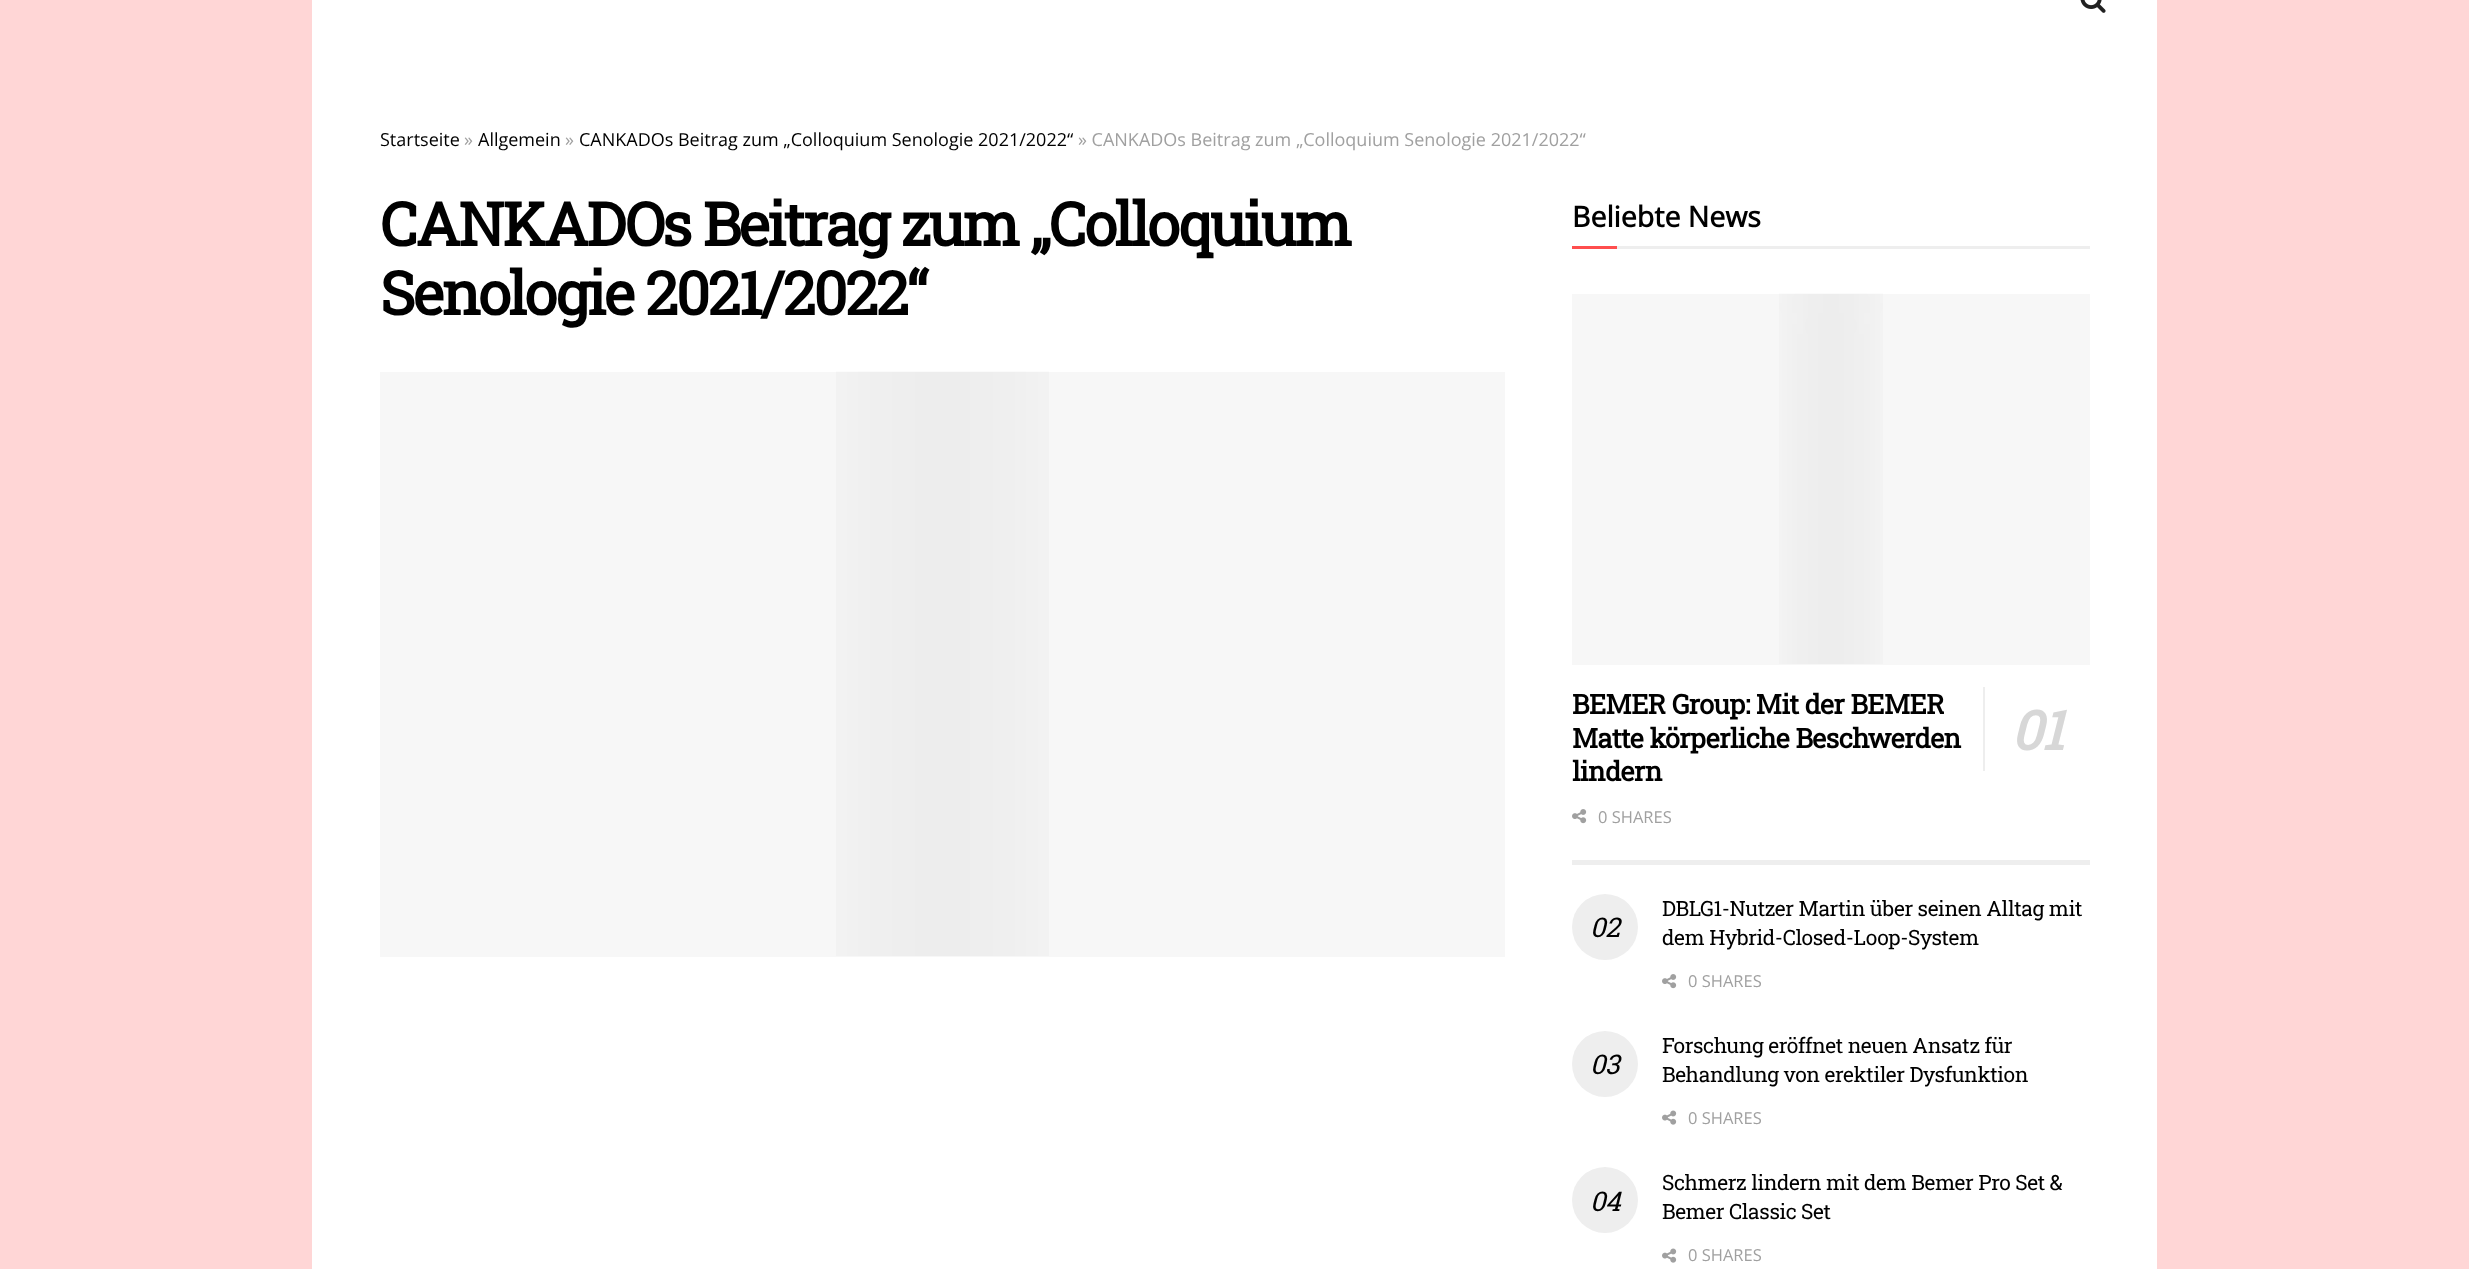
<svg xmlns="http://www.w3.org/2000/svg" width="2469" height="1269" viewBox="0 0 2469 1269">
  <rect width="100%" height="100%" fill="#ffd6d6"/>
  <rect x="312" y="0" width="1845" height="1269" fill="#ffffff"/>
  <image x="2080" y="0" width="26" height="13" href="img1.png"/>
  <text x="380" y="146" font-family="Open Sans" font-size="18" fill="#000000">Startseite</text>
  <text x="464" y="146" font-family="Open Sans" font-size="18" fill="#a0a0a0">»</text>
  <text x="478" y="146" font-family="Open Sans" font-size="18" fill="#000000">Allgemein</text>
  <text x="565" y="146" font-family="Open Sans" font-size="18" fill="#a0a0a0">»</text>
  <text x="579" y="146" font-family="Open Sans" font-size="18" fill="#000000">CANKADOs Beitrag zum „Colloquium Senologie 2021/2022“</text>
  <text x="1078" y="146" font-family="Open Sans" font-size="18" fill="#a0a0a0">» CANKADOs Beitrag zum „Colloquium Senologie 2021/2022“</text>
  <text x="380" y="246" font-family="Roboto Slab" font-size="60" font-weight="bold" letter-spacing="-2.4" fill="#000000">CANKADOs Beitrag zum „Colloquium</text>
  <text x="380" y="315" font-family="Roboto Slab" font-size="60" font-weight="bold" letter-spacing="-2.4" fill="#000000">Senologie 2021/2022“</text>
  <rect x="380" y="372" width="1125" height="585" fill="#f7f7f7"/>
  <image x="836" y="371" width="213" height="585" href="img2.png"/>
  <rect x="1617" y="246" width="473" height="3" fill="#eeeeee"/>
  <text x="1572" y="227" font-family="Open Sans" font-size="28.5" font-weight="bold" fill="#000000">Beliebte News</text>
  <rect x="1572" y="246" width="45" height="3" fill="#ff4e4e"/>
  <rect x="1572" y="860" width="518" height="5" fill="#eeeeee"/>
  <rect x="1572" y="294" width="518" height="371" fill="#f7f7f7"/>
  <image x="1779" y="293" width="104" height="371" href="img3.png"/>
  <text x="1572" y="714" font-family="Roboto Slab" font-size="27" font-weight="bold" letter-spacing="-0.55" fill="#000000">BEMER Group: Mit der BEMER</text>
  <text x="1572" y="748" font-family="Roboto Slab" font-size="27" font-weight="bold" letter-spacing="-0.55" fill="#000000">Matte körperliche Beschwerden</text>
  <rect x="1983" y="687" width="2" height="84" fill="#eeeeee"/>
  <text x="2011" y="750" font-family="Roboto Slab" font-size="54" font-weight="bold" font-style="italic" letter-spacing="-0.55" fill="#d7d7d7">01</text>
  <text x="1572" y="781" font-family="Roboto Slab" font-size="27" font-weight="bold" letter-spacing="-0.55" fill="#000000">lindern</text>
  <image x="1572" y="809" width="15" height="15" href="img4.png"/>
  <text x="1598" y="823" font-family="Open Sans" font-size="16.5" fill="#a0a0a0">0 SHARES</text>
  <text x="1662" y="916" font-family="Roboto Slab" font-size="21" letter-spacing="-0.4" fill="#000000">DBLG1-Nutzer Martin über seinen Alltag mit</text>
  <circle cx="1605" cy="927" r="33" fill="#eeeeee"/>
  <text x="1590" y="937" font-family="Roboto Slab" font-size="27" font-style="italic" letter-spacing="-0.4" fill="#000000">02</text>
  <text x="1662" y="945" font-family="Roboto Slab" font-size="21" letter-spacing="-0.4" fill="#000000">dem Hybrid-Closed-Loop-System</text>
  <image x="1662" y="974" width="15" height="15" href="img4.png"/>
  <text x="1688" y="987" font-family="Open Sans" font-size="16.5" fill="#a0a0a0">0 SHARES</text>
  <text x="1662" y="1053" font-family="Roboto Slab" font-size="21" letter-spacing="-0.4" fill="#000000">Forschung eröffnet neuen Ansatz für</text>
  <circle cx="1605" cy="1064" r="33" fill="#eeeeee"/>
  <text x="1590" y="1074" font-family="Roboto Slab" font-size="27" font-style="italic" letter-spacing="-0.4" fill="#000000">03</text>
  <text x="1662" y="1082" font-family="Roboto Slab" font-size="21" letter-spacing="-0.4" fill="#000000">Behandlung von erektiler Dysfunktion</text>
  <image x="1662" y="1110" width="15" height="15" href="img5.png"/>
  <text x="1688" y="1124" font-family="Open Sans" font-size="16.5" fill="#a0a0a0">0 SHARES</text>
  <text x="1662" y="1190" font-family="Roboto Slab" font-size="21" letter-spacing="-0.4" fill="#000000">Schmerz lindern mit dem Bemer Pro Set &amp;</text>
  <circle cx="1605" cy="1200" r="33" fill="#eeeeee"/>
  <text x="1590" y="1211" font-family="Roboto Slab" font-size="27" font-style="italic" letter-spacing="-0.4" fill="#000000">04</text>
  <text x="1662" y="1219" font-family="Roboto Slab" font-size="21" letter-spacing="-0.4" fill="#000000">Bemer Classic Set</text>
  <image x="1662" y="1248" width="15" height="15" href="img5.png"/>
  <text x="1688" y="1261" font-family="Open Sans" font-size="16.5" fill="#a0a0a0">0 SHARES</text>
</svg>
